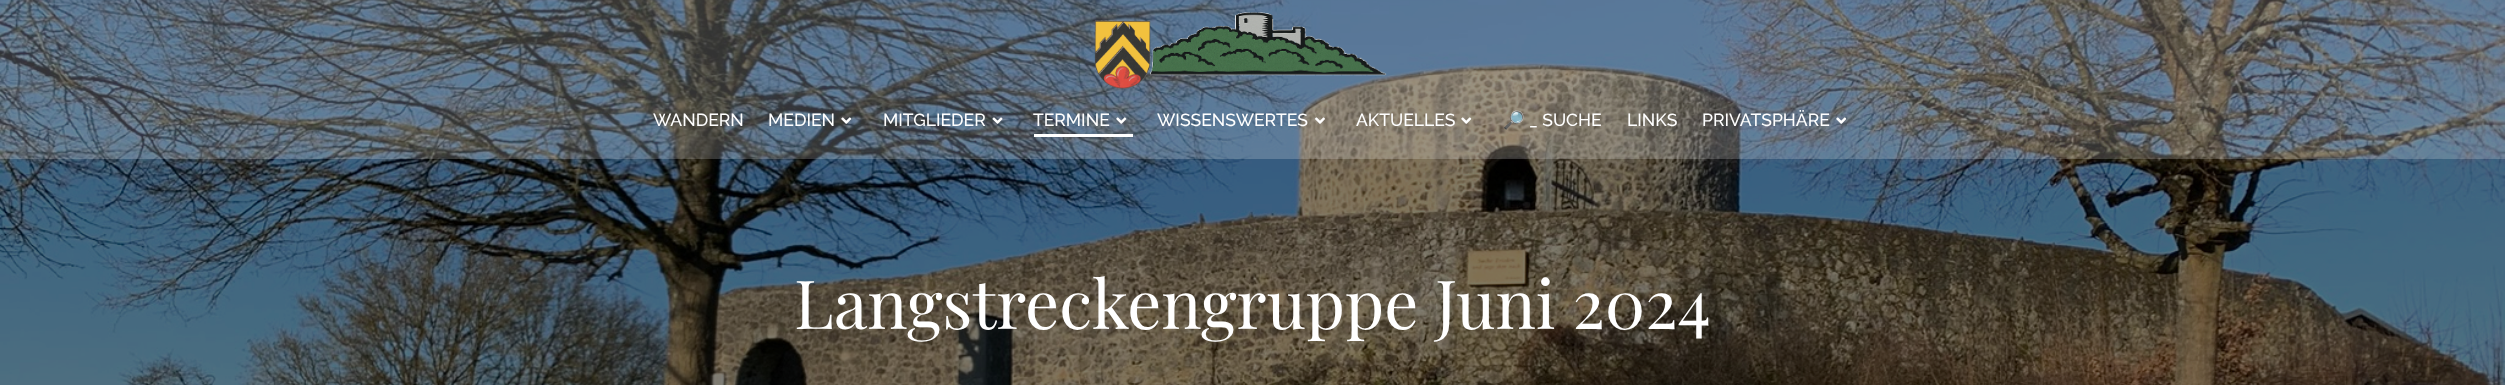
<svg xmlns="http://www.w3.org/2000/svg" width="2505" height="385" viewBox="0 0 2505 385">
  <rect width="100%" height="100%" fill="#ffffff"/>
  <image x="0" y="0" width="2505" height="385" href="img8.png"/>
  <rect x="0" y="0" width="2505" height="159" fill="#ffffff" fill-opacity="0.2"/>
  <image x="1094" y="12" width="293" height="77" href="img1.png"/>
  <text x="653" y="126" font-family="Raleway" font-size="17.5" font-weight="500" fill="#ffffff">WANDERN</text>
  <text x="768" y="126" font-family="Raleway" font-size="17.5" font-weight="500" fill="#ffffff">MEDIEN</text>
  <image x="841" y="117" width="11" height="7" href="img2.png"/>
  <text x="883" y="126" font-family="Raleway" font-size="17.5" font-weight="500" fill="#ffffff">MITGLIEDER</text>
  <image x="992" y="117" width="11" height="7" href="img3.png"/>
  <text x="1033" y="126" font-family="Raleway" font-size="17.5" font-weight="500" fill="#ffffff">TERMINE</text>
  <image x="1116" y="117" width="11" height="7" href="img4.png"/>
  <rect x="1034" y="134" width="99" height="3" fill="#ffffff"/>
  <text x="1157" y="126" font-family="Raleway" font-size="17.5" font-weight="500" fill="#ffffff">WISSENSWERTES</text>
  <image x="1315" y="117" width="10" height="7" href="img5.png"/>
  <text x="1356" y="126" font-family="Raleway" font-size="17.5" font-weight="500" fill="#ffffff">AKTUELLES</text>
  <image x="1461" y="117" width="11" height="7" href="img6.png"/>
  <text x="1503" y="126" font-family="Noto Color Emoji" font-size="17.5" fill="#ffffff">🔎</text>
  <text x="1529" y="126" font-family="Raleway" font-size="17.5" font-weight="500" fill="#ffffff">_ SUCHE</text>
  <text x="1627" y="126" font-family="Raleway" font-size="17.5" font-weight="500" fill="#ffffff">LINKS</text>
  <text x="1702" y="126" font-family="Raleway" font-size="17.5" font-weight="500" fill="#ffffff">PRIVATSPHÄRE</text>
  <image x="1836" y="117" width="11" height="7" href="img7.png"/>
  <text x="794" y="329" font-family="Playfair Display" font-size="67.5" fill="#ffffff">Langstreckengruppe Juni 2024</text>
</svg>
